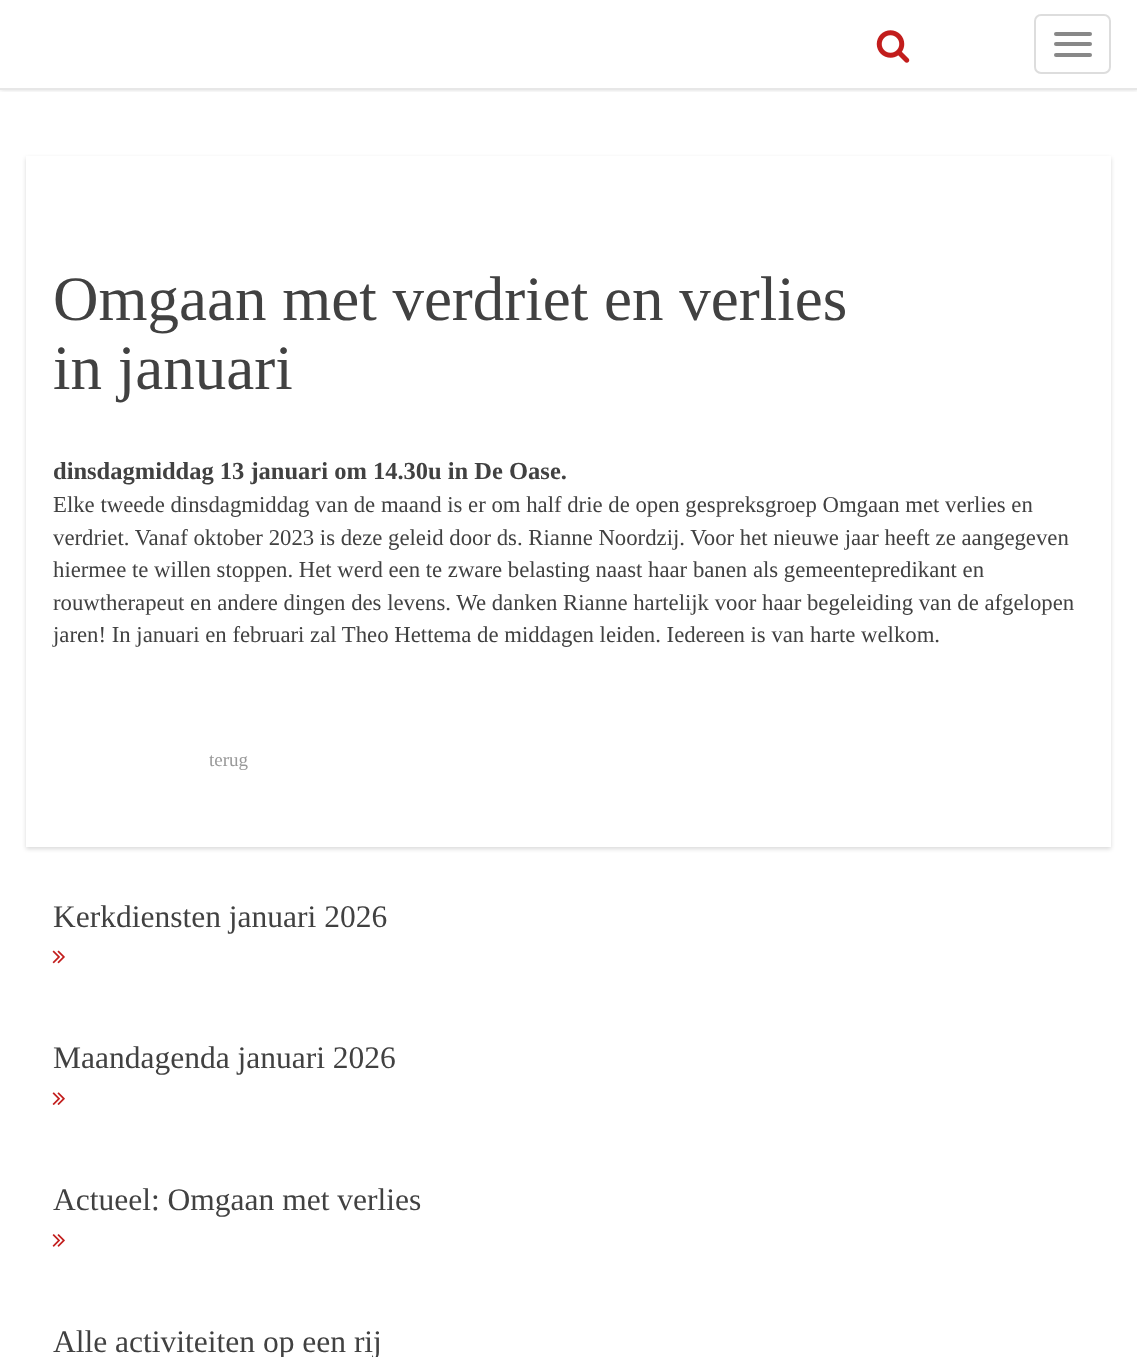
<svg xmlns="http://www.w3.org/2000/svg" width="1137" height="1357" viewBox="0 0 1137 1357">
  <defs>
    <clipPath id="clip1"><rect x="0" y="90" width="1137" height="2"/></clipPath>
    <filter id="blur1" x="-50%" y="-200%" width="200%" height="500%"><feGaussianBlur stdDeviation="2.5"/></filter>
    <filter id="blur2" x="-50%" y="-200%" width="200%" height="500%"><feGaussianBlur stdDeviation="2"/></filter>
  </defs>
  <rect width="100%" height="100%" fill="#ffffff"/>
  <g clip-path="url(#clip1)">
    <rect x="0" y="0" width="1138" height="89" fill="#000000" fill-opacity="0.22" filter="url(#blur1)"/>
  </g>
  <rect x="0" y="88" width="1137" height="2" fill="#e7e7e7"/>
  <image x="876" y="30" width="34" height="33" href="img1.png"/>
  <rect x="1035" y="15" width="75" height="58" rx="6" fill="none" stroke="#dddddd" stroke-width="2"/>
  <rect x="1054" y="32" width="38" height="4" rx="2" fill="#888888"/>
  <rect x="1054" y="42" width="38" height="4" rx="2" fill="#888888"/>
  <rect x="1054" y="53" width="38" height="4" rx="2" fill="#888888"/>
  <rect x="26" y="158" width="1085" height="691" fill="#000000" fill-opacity="0.15" filter="url(#blur2)"/>
  <rect x="26" y="156" width="1085" height="691" fill="#ffffff"/>
  <text x="53" y="320" font-family="Liberation Serif" font-size="63" fill="#414141">Omgaan met verdriet en verlies</text>
  <text x="53" y="389" font-family="Liberation Serif" font-size="63" fill="#414141">in januari</text>
  <text x="53" y="479" font-family="Liberation Serif" font-size="24.5" font-weight="bold" fill="#414141">dinsdagmiddag 13 januari om 14.30u in De Oase.</text>
  <text x="53" y="512" font-family="Liberation Serif" font-size="22.75" fill="#414141">Elke tweede dinsdagmiddag van de maand is er om half drie de open gespreksgroep Omgaan met verlies en</text>
  <text x="53" y="545" font-family="Liberation Serif" font-size="22.75" fill="#414141">verdriet. Vanaf oktober 2023 is deze geleid door ds. Rianne Noordzij. Voor het nieuwe jaar heeft ze aangegeven</text>
  <text x="53" y="577" font-family="Liberation Serif" font-size="22.75" fill="#414141">hiermee te willen stoppen. Het werd een te zware belasting naast haar banen als gemeentepredikant en</text>
  <text x="53" y="610" font-family="Liberation Serif" font-size="22.75" fill="#414141">rouwtherapeut en andere dingen des levens. We danken Rianne hartelijk voor haar begeleiding van de afgelopen</text>
  <text x="53" y="642" font-family="Liberation Serif" font-size="22.75" fill="#414141">jaren! In januari en februari zal Theo Hettema de middagen leiden. Iedereen is van harte welkom.</text>
  <text x="209" y="766" font-family="Liberation Serif" font-size="19" fill="#999999">terug</text>
  <text x="53" y="927" font-family="Liberation Serif" font-size="31.5" fill="#414141">Kerkdiensten januari 2026</text>
  <image x="52" y="950" width="13" height="14" href="img2.png"/>
  <text x="53" y="1068" font-family="Liberation Serif" font-size="31.5" fill="#414141">Maandagenda januari 2026</text>
  <image x="52" y="1092" width="13" height="13" href="img3.png"/>
  <text x="53" y="1210" font-family="Liberation Serif" font-size="31.5" fill="#414141">Actueel: Omgaan met verlies</text>
  <image x="52" y="1234" width="13" height="13" href="img4.png"/>
  <text x="53" y="1352" font-family="Liberation Serif" font-size="31.5" fill="#414141">Alle activiteiten op een rij</text>
</svg>
